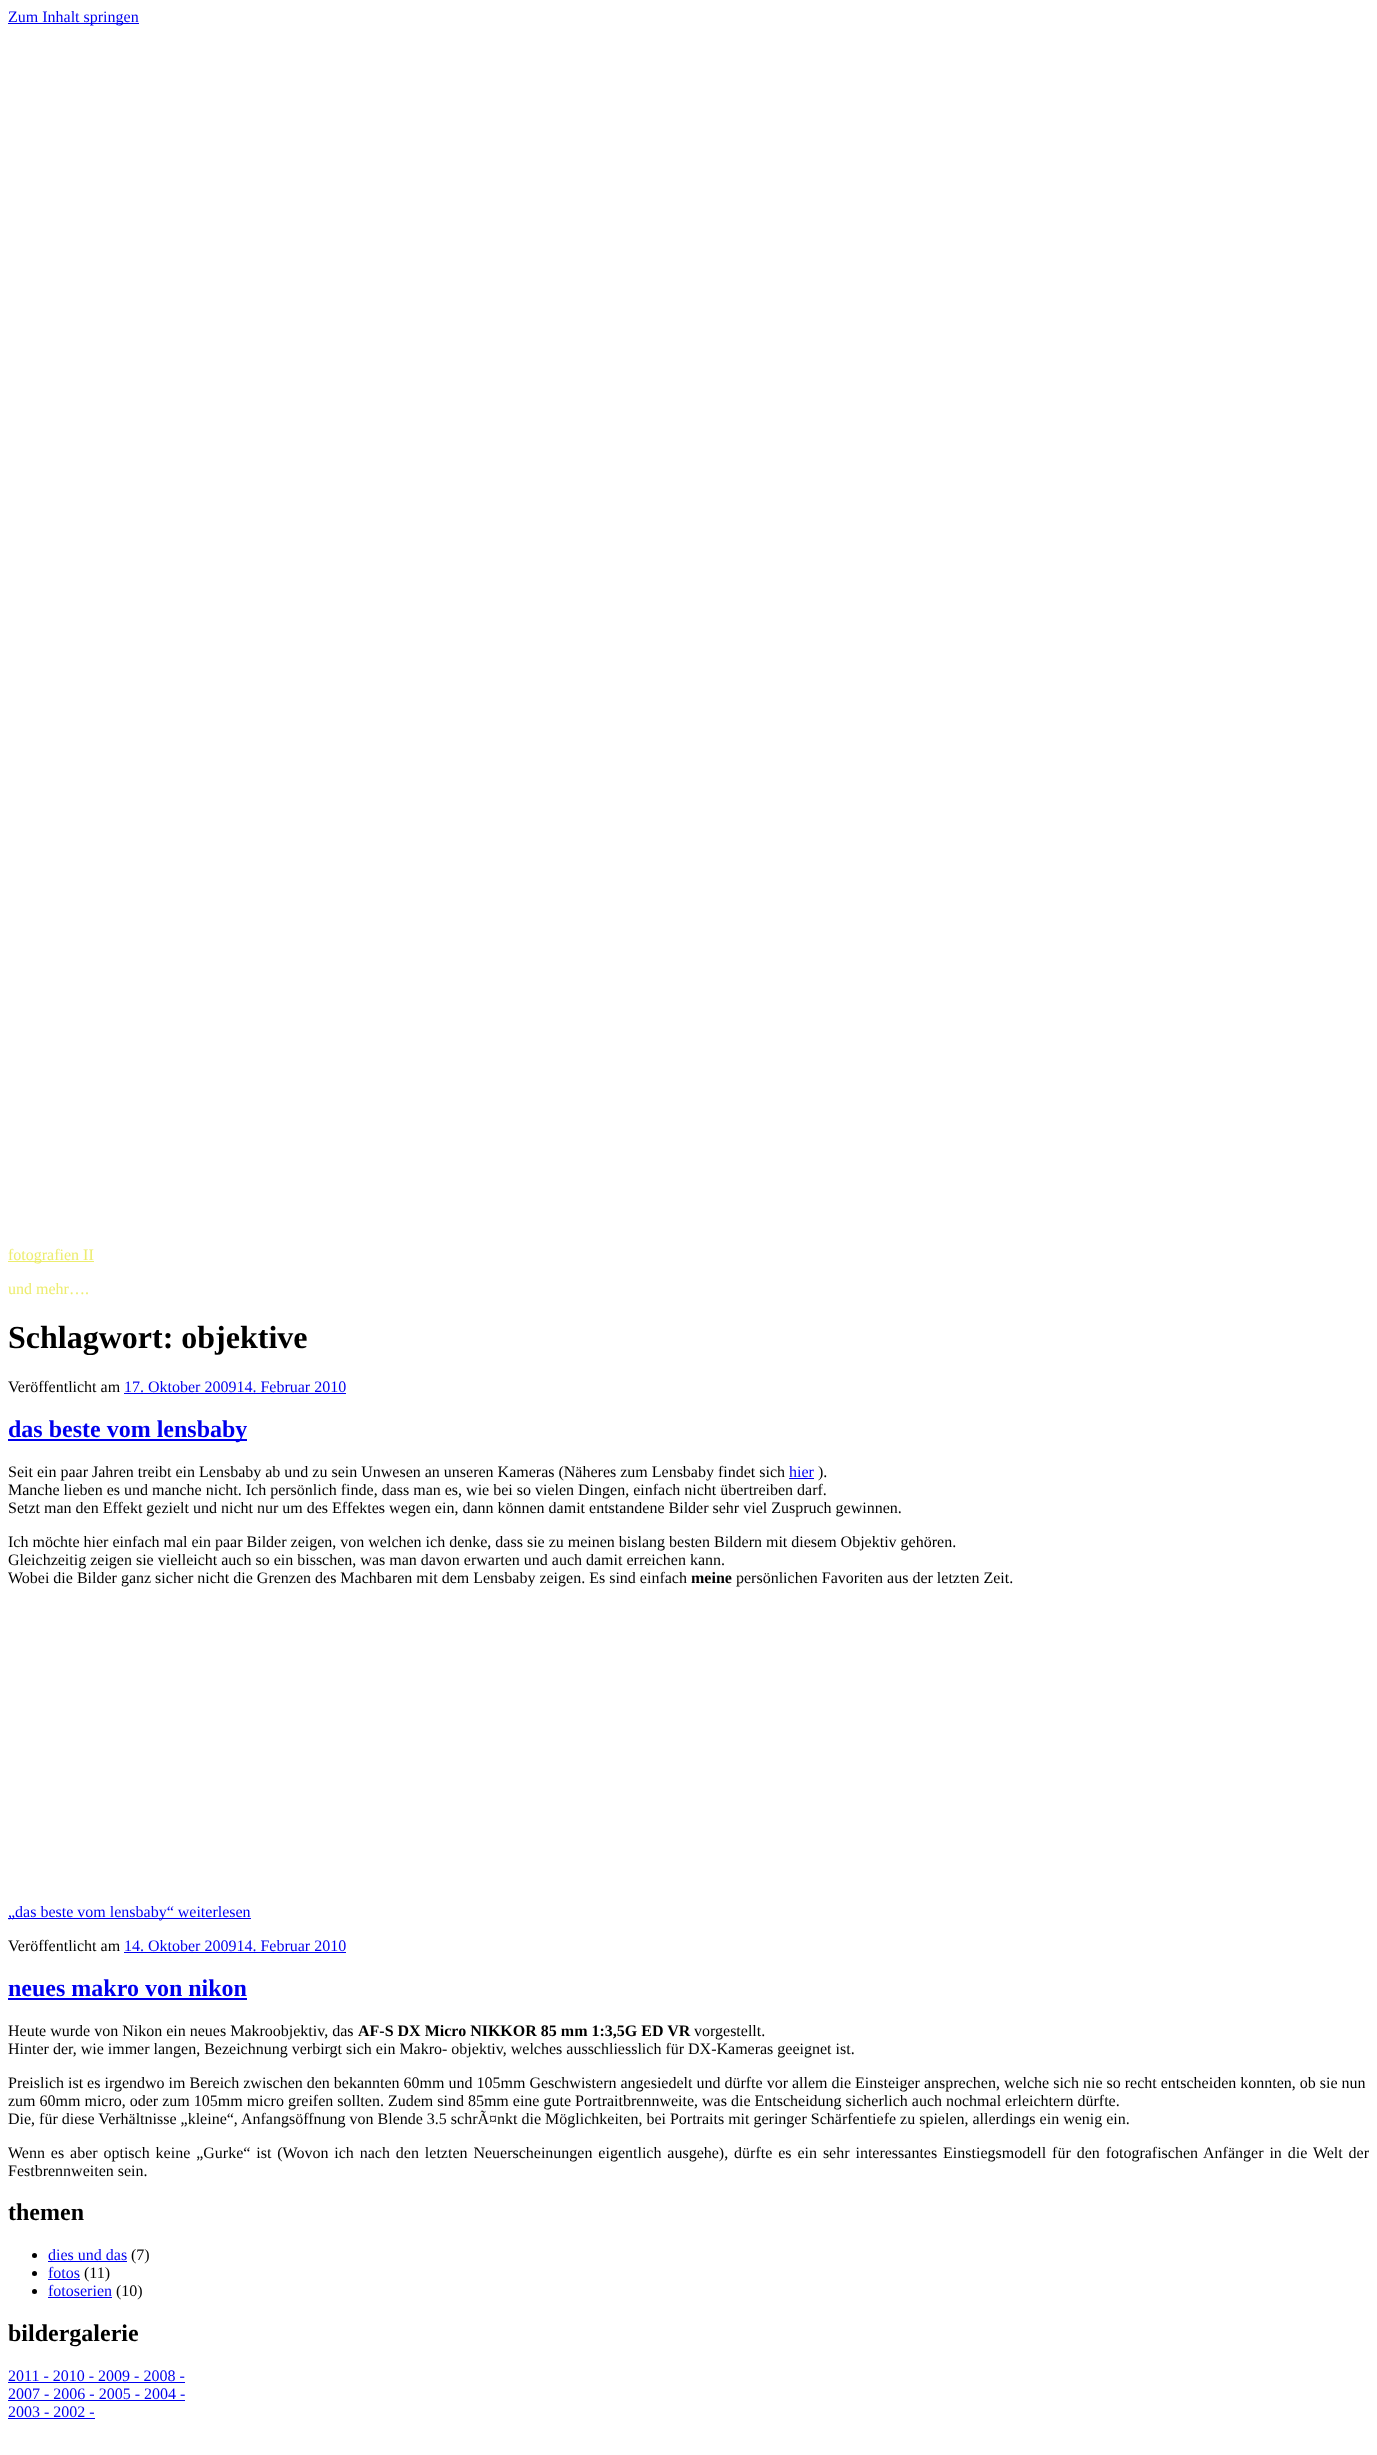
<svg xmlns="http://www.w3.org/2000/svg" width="1377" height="2455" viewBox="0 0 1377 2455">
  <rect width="100%" height="100%" fill="#ffffff"/>
  <rect x="8" y="23" width="131" height="1" fill="#0000ee"/>
  <text x="8" y="22" font-family="Liberation Serif" font-size="16" fill="#0000ee">Zum Inhalt springen</text>
  <rect x="8" y="1261" width="86" height="1" fill="#eded6f"/>
  <text x="8" y="1260" font-family="Liberation Serif" font-size="16" fill="#eded6f">fotografien II</text>
  <text x="8" y="1294" font-family="Liberation Serif" font-size="16" fill="#eded6f">und mehr….</text>
  <text x="8" y="1348" font-family="Liberation Serif" font-size="32" font-weight="bold" fill="#000000">Schlagwort: objektive</text>
  <text x="8" y="1392" font-family="Liberation Serif" font-size="16" fill="#000000">Veröffentlicht am</text>
  <text x="124" y="1392" font-family="Liberation Serif" font-size="16" fill="#0000ee">17. Oktober 200914. Februar 2010</text>
  <rect x="124" y="1393" width="222" height="1" fill="#0000ee"/>
  <rect x="8" y="1439" width="239" height="2" fill="#0000ee"/>
  <text x="8" y="1437" font-family="Liberation Serif" font-size="24" font-weight="bold" fill="#0000ee">das beste vom lensbaby</text>
  <text x="8" y="1477" font-family="Liberation Serif" font-size="16" fill="#000000">Seit ein paar Jahren treibt ein Lensbaby ab und zu sein Unwesen an unseren Kameras (Näheres zum Lensbaby findet sich</text>
  <text x="789" y="1477" font-family="Liberation Serif" font-size="16" fill="#0000ee">hier</text>
  <rect x="789" y="1478" width="25" height="1" fill="#0000ee"/>
  <text x="818" y="1477" font-family="Liberation Serif" font-size="16" fill="#000000">).</text>
  <text x="8" y="1495" font-family="Liberation Serif" font-size="16" fill="#000000">Manche lieben es und manche nicht. Ich persönlich finde, dass man es, wie bei so vielen Dingen, einfach nicht übertreiben darf.</text>
  <text x="8" y="1513" font-family="Liberation Serif" font-size="16" fill="#000000">Setzt man den Effekt gezielt und nicht nur um des Effektes wegen ein, dann können damit entstandene Bilder sehr viel Zuspruch gewinnen.</text>
  <text x="8" y="1547" font-family="Liberation Serif" font-size="16" fill="#000000">Ich möchte hier einfach mal ein paar Bilder zeigen, von welchen ich denke, dass sie zu meinen bislang besten Bildern mit diesem Objektiv gehören.</text>
  <text x="8" y="1565" font-family="Liberation Serif" font-size="16" fill="#000000">Gleichzeitig zeigen sie vielleicht auch so ein bisschen, was man davon erwarten und auch damit erreichen kann.</text>
  <text x="8" y="1583" font-family="Liberation Serif" font-size="16" fill="#000000">Wobei die Bilder ganz sicher nicht die Grenzen des Machbaren mit dem Lensbaby zeigen. Es sind einfach</text>
  <text x="691" y="1583" font-family="Liberation Serif" font-size="16" font-weight="bold" fill="#000000">meine</text>
  <text x="736" y="1583" font-family="Liberation Serif" font-size="16" fill="#000000">persönlichen Favoriten aus der letzten Zeit.</text>
  <rect x="8" y="1918" width="243" height="1" fill="#0000ee"/>
  <text x="8" y="1917" font-family="Liberation Serif" font-size="16" fill="#0000ee">„das beste vom lensbaby“ weiterlesen</text>
  <text x="8" y="1951" font-family="Liberation Serif" font-size="16" fill="#000000">Veröffentlicht am</text>
  <text x="124" y="1951" font-family="Liberation Serif" font-size="16" fill="#0000ee">14. Oktober 200914. Februar 2010</text>
  <rect x="124" y="1952" width="222" height="1" fill="#0000ee"/>
  <text x="8" y="1996" font-family="Liberation Serif" font-size="24" font-weight="bold" fill="#0000ee">neues makro von nikon</text>
  <rect x="8" y="1998" width="239" height="2" fill="#0000ee"/>
  <text x="8" y="2036" font-family="Liberation Serif" font-size="16" fill="#000000">Heute wurde von Nikon ein neues Makroobjektiv, das</text>
  <text x="358" y="2036" font-family="Liberation Serif" font-size="16" font-weight="bold" fill="#000000">AF-S DX Micro NIKKOR 85 mm 1:3,5G ED VR</text>
  <text x="694" y="2036" font-family="Liberation Serif" font-size="16" fill="#000000">vorgestellt.</text>
  <text x="8" y="2054" font-family="Liberation Serif" font-size="16" fill="#000000">Hinter der, wie immer langen, Bezeichnung verbirgt sich ein Makro- objektiv, welches ausschliesslich für DX-Kameras geeignet ist.</text>
  <text x="8" y="2088" font-family="Liberation Serif" font-size="16" fill="#000000">Preislich ist es irgendwo im Bereich zwischen den bekannten 60mm und 105mm Geschwistern angesiedelt und dürfte vor allem die Einsteiger ansprechen, welche sich nie so recht entscheiden konnten, ob sie nun</text>
  <text x="8" y="2106" font-family="Liberation Serif" font-size="16" fill="#000000">zum 60mm micro, oder zum 105mm micro greifen sollten. Zudem sind 85mm eine gute Portraitbrennweite, was die Entscheidung sicherlich auch nochmal erleichtern dürfte.</text>
  <text x="8" y="2124" font-family="Liberation Serif" font-size="16" fill="#000000">Die, für diese Verhältnisse „kleine“, Anfangsöffnung von Blende 3.5 schrÃ¤nkt die Möglichkeiten, bei Portraits mit geringer Schärfentiefe zu spielen, allerdings ein wenig ein.</text>
  <text x="8" y="2158" word-spacing="1.9" font-family="Liberation Serif" font-size="16" fill="#000000">Wenn es aber optisch keine „Gurke“ ist (Wovon ich nach den letzten Neuerscheinungen eigentlich ausgehe), dürfte es ein sehr interessantes Einstiegsmodell für den fotografischen Anfänger in die Welt der</text>
  <text x="8" y="2176" font-family="Liberation Serif" font-size="16" fill="#000000">Festbrennweiten sein.</text>
  <text x="8" y="2220" font-family="Liberation Serif" font-size="24" font-weight="bold" fill="#000000">themen</text>
  <circle cx="34.5" cy="2255.5" r="2.5" fill="#000000"/>
  <text x="48" y="2260" font-family="Liberation Serif" font-size="16" fill="#0000ee">dies und das</text>
  <rect x="48" y="2261" width="79" height="1" fill="#0000ee"/>
  <text x="131" y="2260" font-family="Liberation Serif" font-size="16" fill="#000000">(7)</text>
  <circle cx="34.5" cy="2273.5" r="2.5" fill="#000000"/>
  <text x="48" y="2278" font-family="Liberation Serif" font-size="16" fill="#0000ee">fotos</text>
  <rect x="48" y="2279" width="32" height="1" fill="#0000ee"/>
  <text x="84" y="2278" font-family="Liberation Serif" font-size="16" fill="#000000">(11)</text>
  <circle cx="34.5" cy="2291.5" r="2.5" fill="#000000"/>
  <text x="48" y="2296" font-family="Liberation Serif" font-size="16" fill="#0000ee">fotoserien</text>
  <rect x="48" y="2297" width="64" height="1" fill="#0000ee"/>
  <text x="116" y="2296" font-family="Liberation Serif" font-size="16" fill="#000000">(10)</text>
  <text x="8" y="2341" font-family="Liberation Serif" font-size="24" font-weight="bold" fill="#000000">bildergalerie</text>
  <text x="8" y="2381" font-family="Liberation Serif" font-size="16" fill="#0000ee">2011 - 2010 - 2009 - 2008 -</text>
  <rect x="8" y="2382" width="177" height="1" fill="#0000ee"/>
  <text x="8" y="2399" font-family="Liberation Serif" font-size="16" fill="#0000ee">2007 - 2006 - 2005 - 2004 -</text>
  <rect x="8" y="2400" width="177" height="1" fill="#0000ee"/>
  <text x="8" y="2417" font-family="Liberation Serif" font-size="16" fill="#0000ee">2003 - 2002 -</text>
  <rect x="8" y="2418" width="87" height="1" fill="#0000ee"/>
</svg>
